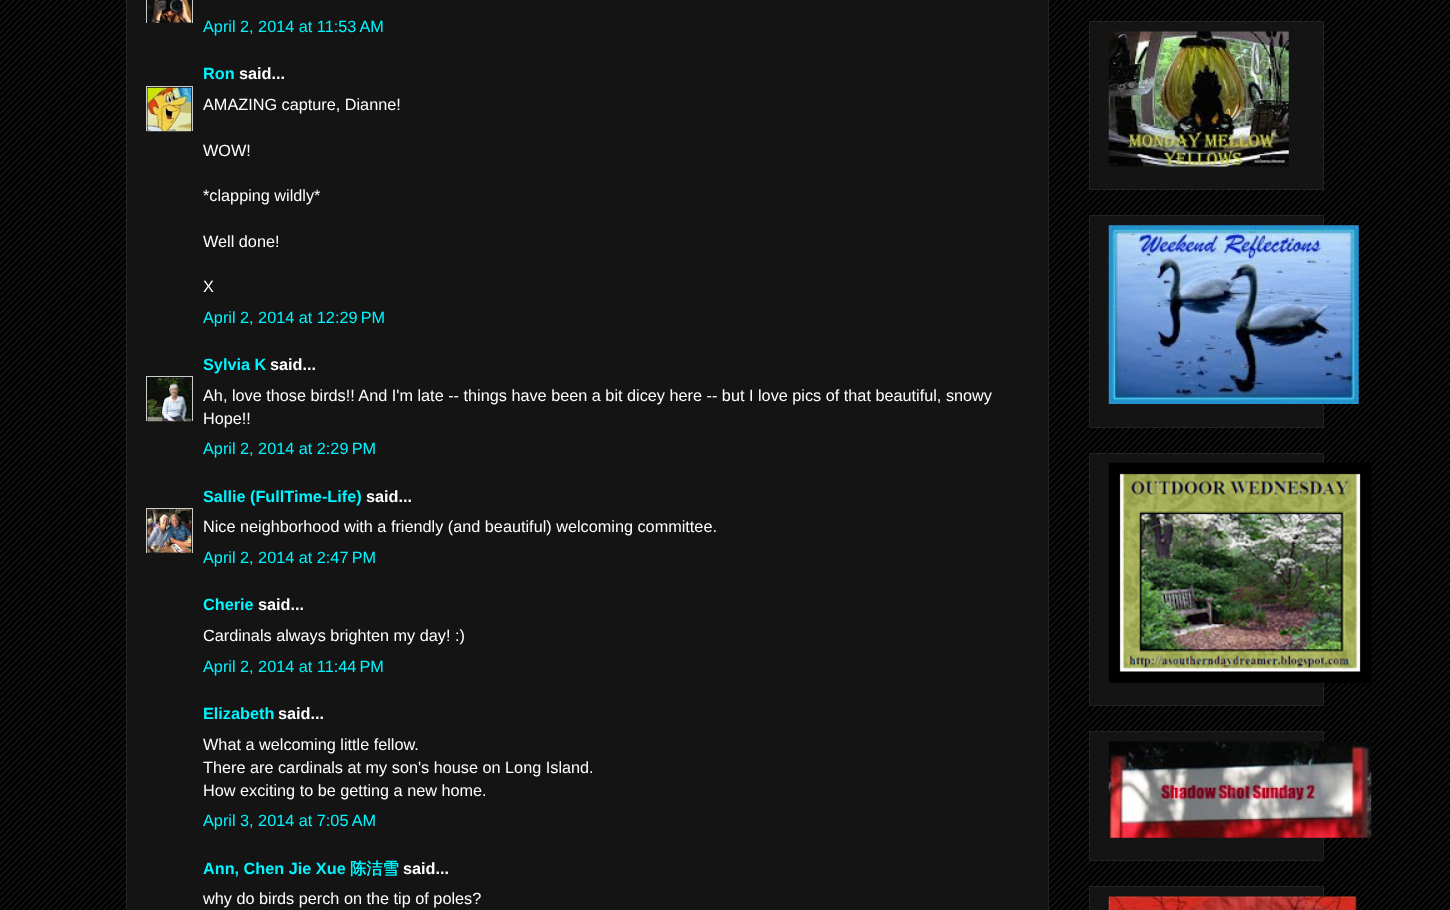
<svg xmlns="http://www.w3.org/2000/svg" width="1450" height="910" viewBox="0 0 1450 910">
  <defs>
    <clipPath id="clip1"><rect x="146" y="0" width="47" height="23"/></clipPath>
    <clipPath id="clip2"><rect x="146" y="86" width="47" height="45"/></clipPath>
    <clipPath id="clip3"><rect x="146" y="376" width="47" height="45"/></clipPath>
    <clipPath id="clip4"><rect x="146" y="508" width="47" height="45"/></clipPath>
  </defs>
  <rect width="100%" height="100%" fill="#000000"/>
  <image x="0" y="0" width="1450" height="910" href="img1.png"/>
  <rect x="126.5" y="-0.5" width="922" height="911" fill="#141414" stroke="#222222"/>
  <g clip-path="url(#clip1)">
    <rect x="146.5" y="-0.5" width="46" height="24" fill="none" stroke="#cccccc"/>
  </g>
  <image x="147" y="0" width="45" height="23" href="img2.png"/>
  <text x="203" y="32" font-family="Liberation Sans" font-size="16.25" fill="#00f5ff">April 2, 2014 at 11:53 AM</text>
  <text x="203" y="79" font-family="Liberation Sans" font-size="16.25" font-weight="bold" fill="#00f5ff">Ron</text>
  <text x="239" y="79" font-family="Liberation Sans" font-size="16.25" font-weight="bold" fill="#ffffff">said...</text>
  <g clip-path="url(#clip2)">
    <rect x="146.5" y="86.5" width="46" height="46" fill="none" stroke="#cccccc"/>
  </g>
  <image x="147" y="87" width="45" height="45" href="img3.png"/>
  <text x="203" y="110" font-family="Liberation Sans" font-size="16.25" fill="#ffffff">AMAZING capture, Dianne!</text>
  <text x="203" y="156" font-family="Liberation Sans" font-size="16.25" fill="#ffffff">WOW!</text>
  <text x="203" y="201" font-family="Liberation Sans" font-size="16.25" fill="#ffffff">*clapping wildly*</text>
  <text x="203" y="247" font-family="Liberation Sans" font-size="16.25" fill="#ffffff">Well done!</text>
  <text x="203" y="292" font-family="Liberation Sans" font-size="16.25" fill="#ffffff">X</text>
  <text x="203" y="323" font-family="Liberation Sans" font-size="16.25" fill="#00f5ff">April 2, 2014 at 12:29 PM</text>
  <text x="203" y="370" font-family="Liberation Sans" font-size="16.25" font-weight="bold" fill="#00f5ff">Sylvia K</text>
  <text x="270" y="370" font-family="Liberation Sans" font-size="16.25" font-weight="bold" fill="#ffffff">said...</text>
  <g clip-path="url(#clip3)">
    <rect x="146.5" y="376.5" width="46" height="46" fill="none" stroke="#cccccc"/>
  </g>
  <image x="147" y="377" width="45" height="45" href="img4.png"/>
  <text x="203" y="401" font-family="Liberation Sans" font-size="16.25" fill="#ffffff">Ah, love those birds!! And I'm late -- things have been a bit dicey here -- but I love pics of that beautiful, snowy</text>
  <text x="203" y="424" font-family="Liberation Sans" font-size="16.25" fill="#ffffff">Hope!!</text>
  <text x="203" y="454" font-family="Liberation Sans" font-size="16.25" fill="#00f5ff">April 2, 2014 at 2:29 PM</text>
  <text x="203" y="502" font-family="Liberation Sans" font-size="16.25" font-weight="bold" fill="#00f5ff">Sallie (FullTime-Life)</text>
  <text x="366" y="502" font-family="Liberation Sans" font-size="16.25" font-weight="bold" fill="#ffffff">said...</text>
  <g clip-path="url(#clip4)">
    <rect x="146.5" y="508.5" width="46" height="45" fill="none" stroke="#cccccc"/>
  </g>
  <image x="147" y="509" width="45" height="44" href="img5.png"/>
  <text x="203" y="532" font-family="Liberation Sans" font-size="16.25" fill="#ffffff">Nice neighborhood with a friendly (and beautiful) welcoming committee.</text>
  <text x="203" y="563" font-family="Liberation Sans" font-size="16.25" fill="#00f5ff">April 2, 2014 at 2:47 PM</text>
  <text x="203" y="610" font-family="Liberation Sans" font-size="16.25" font-weight="bold" fill="#00f5ff">Cherie</text>
  <text x="258" y="610" font-family="Liberation Sans" font-size="16.25" font-weight="bold" fill="#ffffff">said...</text>
  <text x="203" y="641" font-family="Liberation Sans" font-size="16.25" fill="#ffffff">Cardinals always brighten my day! :)</text>
  <text x="203" y="672" font-family="Liberation Sans" font-size="16.25" fill="#00f5ff">April 2, 2014 at 11:44 PM</text>
  <text x="203" y="719" font-family="Liberation Sans" font-size="16.25" font-weight="bold" fill="#00f5ff">Elizabeth</text>
  <text x="278" y="719" font-family="Liberation Sans" font-size="16.25" font-weight="bold" fill="#ffffff">said...</text>
  <text x="203" y="750" font-family="Liberation Sans" font-size="16.25" fill="#ffffff">What a welcoming little fellow.</text>
  <text x="203" y="773" font-family="Liberation Sans" font-size="16.25" fill="#ffffff">There are cardinals at my son's house on Long Island.</text>
  <text x="203" y="796" font-family="Liberation Sans" font-size="16.25" fill="#ffffff">How exciting to be getting a new home.</text>
  <text x="203" y="826" font-family="Liberation Sans" font-size="16.25" fill="#00f5ff">April 3, 2014 at 7:05 AM</text>
  <text x="203" y="874" font-family="Liberation Sans" font-size="16.25" font-weight="bold" fill="#00f5ff">Ann, Chen Jie Xue</text>
  <text x="350" y="874" font-family="WenQuanYi Zen Hei" font-size="16.25" font-weight="bold" fill="#00f5ff">陈洁雪</text>
  <text x="403" y="874" font-family="Liberation Sans" font-size="16.25" font-weight="bold" fill="#ffffff">said...</text>
  <text x="203" y="904" font-family="Liberation Sans" font-size="16.25" fill="#ffffff">why do birds perch on the tip of poles?</text>
  <rect x="1089.5" y="21.5" width="234" height="168" fill="#141414" stroke="#222222"/>
  <image x="1108" y="31" width="181" height="136" href="img6.png"/>
  <rect x="1089.5" y="215.5" width="234" height="212" fill="#141414" stroke="#222222"/>
  <image x="1108" y="225" width="251" height="179" href="img7.png"/>
  <rect x="1089.5" y="453.5" width="234" height="252" fill="#141414" stroke="#222222"/>
  <image x="1108" y="462" width="264" height="221" href="img8.png"/>
  <rect x="1089.5" y="731.5" width="234" height="129" fill="#141414" stroke="#222222"/>
  <image x="1108" y="741" width="264" height="97" href="img9.png"/>
  <rect x="1089.5" y="886.5" width="234" height="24" fill="#141414" stroke="#222222"/>
  <image x="1108" y="896" width="249" height="14" href="img10.png"/>
</svg>
